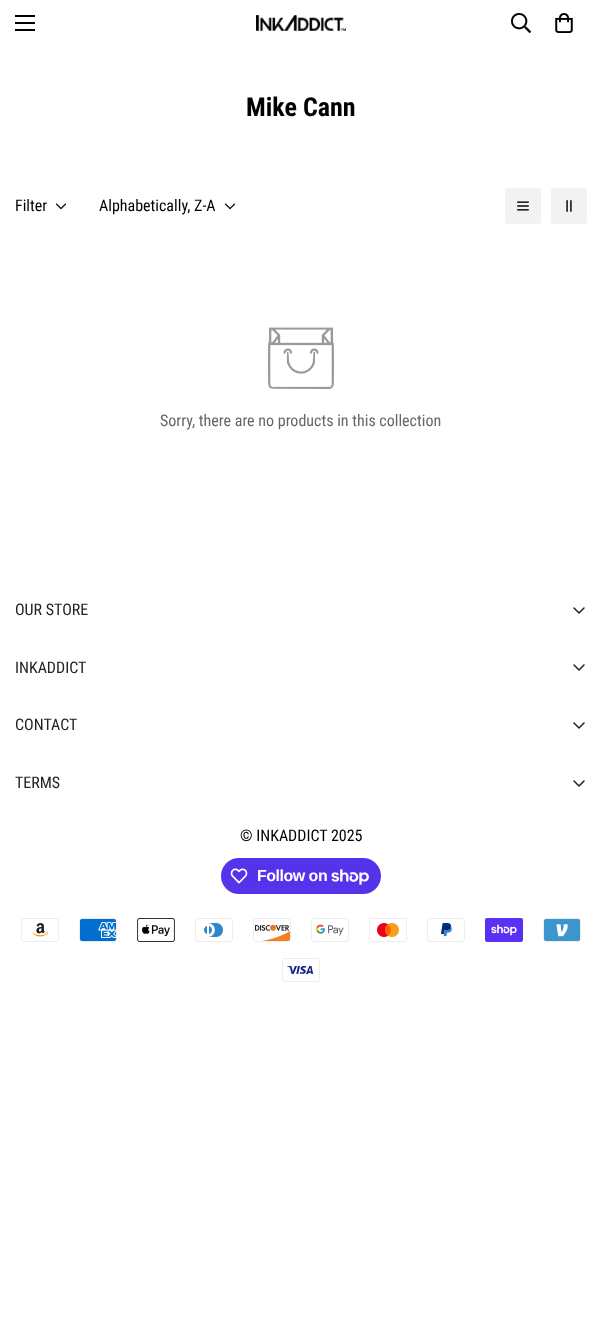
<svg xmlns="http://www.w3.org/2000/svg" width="602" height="1330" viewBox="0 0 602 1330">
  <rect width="100%" height="100%" fill="#ffffff"/>
  <rect x="15" y="22" width="20" height="2" fill="#000000"/>
  <rect x="15" y="15" width="20" height="2" fill="#000000"/>
  <rect x="15" y="29" width="20" height="2" fill="#000000"/>
  <image x="256" y="15" width="90" height="16" href="img1.png"/>
  <image x="511" y="13" width="20" height="20" href="img2.png"/>
  <image x="555" y="13" width="18" height="20" href="img3.png"/>
  <text x="246" y="116" font-family="Roboto Condensed" font-size="26" font-weight="bold" fill="#000000">Mike Cann</text>
  <text x="15" y="211" font-family="Roboto Condensed" font-size="16" fill="#000000">Filter</text>
  <image x="55" y="203" width="12" height="7" href="img4.png"/>
  <text x="99" y="211" font-family="Roboto Condensed" font-size="16" fill="#000000">Alphabetically, Z-A</text>
  <image x="224" y="203" width="12" height="7" href="img4.png"/>
  <rect x="505" y="188" width="36" height="36" rx="3" fill="#f2f2f2"/>
  <image x="517" y="201" width="12" height="10" href="img5.png"/>
  <rect x="551" y="188" width="36" height="36" rx="3" fill="#f2f2f2"/>
  <image x="566" y="200" width="6" height="12" href="img6.png"/>
  <image x="268" y="327" width="66" height="62" href="img7.png"/>
  <text x="160" y="426" font-family="Roboto Condensed" font-size="16" fill="#666666">Sorry, there are no products in this collection</text>
  <text x="15" y="615" font-family="Roboto Condensed" font-size="16" fill="#222222">OUR STORE</text>
  <image x="573" y="607" width="12" height="7" href="img8.png"/>
  <text x="15" y="673" font-family="Roboto Condensed" font-size="16" fill="#222222">INKADDICT</text>
  <image x="573" y="664" width="12" height="7" href="img8.png"/>
  <text x="15" y="730" font-family="Roboto Condensed" font-size="16" fill="#222222">CONTACT</text>
  <image x="573" y="722" width="12" height="7" href="img8.png"/>
  <text x="15" y="788" font-family="Roboto Condensed" font-size="16" fill="#222222">TERMS</text>
  <image x="573" y="780" width="12" height="7" href="img8.png"/>
  <text x="240" y="841" font-family="Roboto Condensed" font-size="16" fill="#000000">© INKADDICT 2025</text>
  <rect x="221" y="858" width="160" height="36" rx="18" fill="#5433eb"/>
  <image x="230" y="868" width="18" height="16" href="img9.png"/>
  <text x="257" y="881" font-family="Liberation Sans" font-size="16" font-weight="bold" letter-spacing="-0.5" fill="#ffffff">Follow on</text>
  <image x="331" y="869" width="38" height="16" href="img10.png"/>
  <image x="21" y="918" width="38" height="24" href="img11.png"/>
  <image x="79" y="918" width="38" height="24" href="img12.png"/>
  <image x="137" y="918" width="38" height="24" href="img13.png"/>
  <image x="195" y="918" width="38" height="24" href="img14.png"/>
  <image x="253" y="918" width="38" height="24" href="img15.png"/>
  <image x="311" y="918" width="38" height="24" href="img16.png"/>
  <image x="369" y="918" width="38" height="24" href="img17.png"/>
  <image x="427" y="918" width="38" height="24" href="img18.png"/>
  <image x="485" y="918" width="38" height="24" href="img19.png"/>
  <image x="543" y="918" width="38" height="24" href="img20.png"/>
  <image x="282" y="958" width="38" height="24" href="img21.png"/>
</svg>
